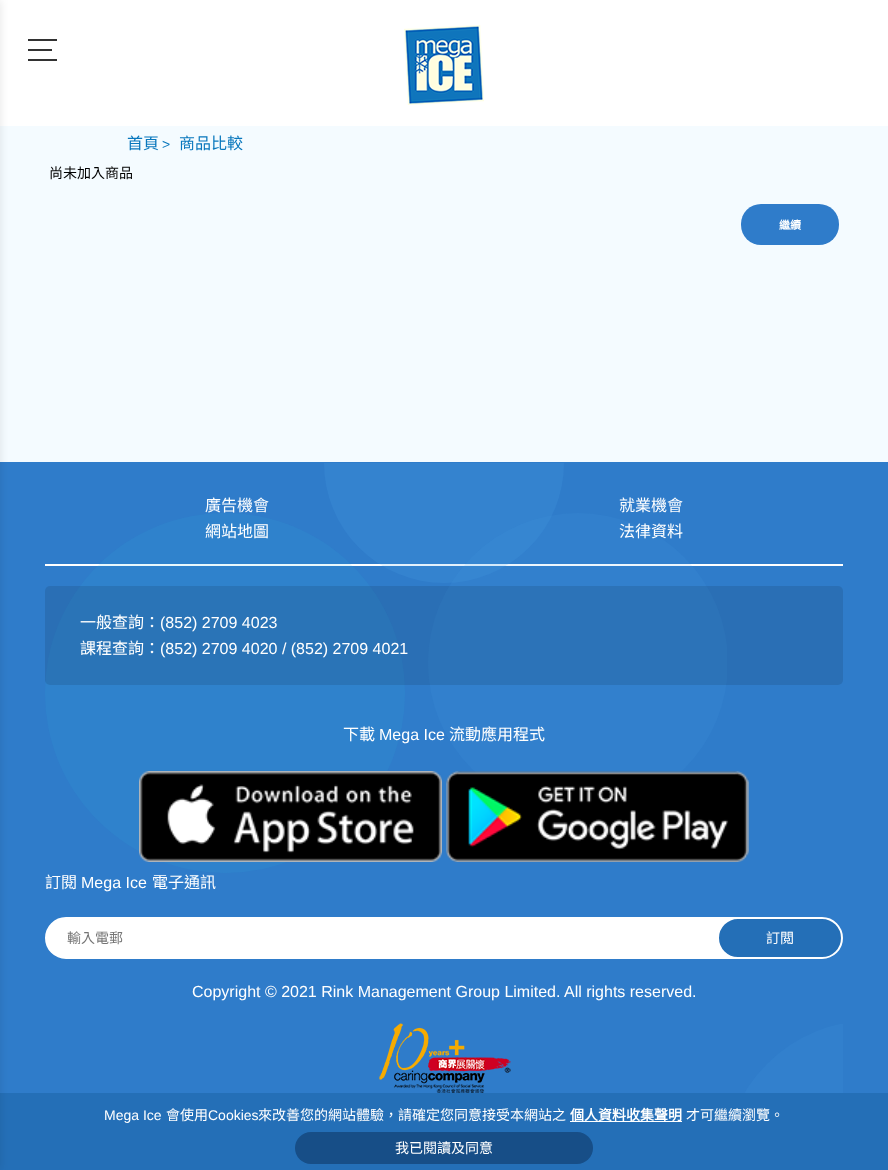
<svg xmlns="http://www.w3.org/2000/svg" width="888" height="1170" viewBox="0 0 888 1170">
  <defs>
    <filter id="blur1" x="-50%" y="-200%" width="200%" height="500%"><feGaussianBlur stdDeviation="0.5"/></filter>
    <filter id="blur2" x="-50%" y="-200%" width="200%" height="500%"><feGaussianBlur stdDeviation="5"/></filter>
  </defs>
  <rect width="100%" height="100%" fill="#f4fbff"/>
  <rect x="0" y="0" width="888" height="126" fill="#ffffff"/>
  <rect x="28" y="49" width="24" height="2" fill="#333333" filter="url(#blur1)"/>
  <rect x="28" y="39" width="29" height="2" fill="#333333" filter="url(#blur1)"/>
  <rect x="28" y="59" width="29" height="2" fill="#333333" filter="url(#blur1)"/>
  <image x="404" y="25" width="80" height="80" href="img1.png"/>
  <rect x="0" y="462" width="888" height="631" fill="#2f7cca"/>
  <rect x="0" y="1093" width="888" height="77" fill="#246fb7"/>
  <rect x="-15" y="0" width="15" height="1170" fill="#000000" fill-opacity="0.1" filter="url(#blur2)"/>
  <text x="127" y="149" font-family="Noto Sans CJK HK" font-size="16" fill="#0877bd">首頁</text>
  <text x="162" y="149" font-family="Liberation Sans" font-size="14" fill="#0877bd">&gt;</text>
  <text x="179" y="149" font-family="Noto Sans CJK HK" font-size="16" fill="#0877bd">商品比較</text>
  <text x="49" y="178" font-family="Noto Sans CJK HK" font-size="14" fill="#000000">尚未加入商品</text>
  <rect x="741" y="204" width="98" height="41" rx="20" fill="#2f7cca"/>
  <text x="779" y="229" font-family="Noto Sans CJK HK" font-size="11" font-weight="bold" fill="#ffffff">繼續</text>
  <rect x="45" y="564" width="798" height="2" fill="#ffffff"/>
  <image x="324" y="463" width="240" height="120" href="img2.png"/>
  <text x="205" y="511" font-family="Noto Sans CJK HK" font-size="16" fill="#ffffff">廣告機會</text>
  <text x="619" y="511" font-family="Noto Sans CJK HK" font-size="16" fill="#ffffff">就業機會</text>
  <image x="45" y="513" width="360" height="360" href="img3.png"/>
  <text x="205" y="537" font-family="Noto Sans CJK HK" font-size="16" fill="#ffffff">網站地圖</text>
  <image x="428" y="513" width="299" height="260" href="img4.png"/>
  <text x="619" y="537" font-family="Noto Sans CJK HK" font-size="16" fill="#ffffff">法律資料</text>
  <rect x="45" y="586" width="798" height="99" rx="5" fill="#000000" fill-opacity="0.1"/>
  <text x="80" y="628" font-family="Noto Sans CJK HK" font-size="16" fill="#ffffff">一般查詢：</text>
  <text x="160" y="628" font-family="Liberation Sans" font-size="16" fill="#ffffff">(852) 2709 4023</text>
  <text x="80" y="654" font-family="Noto Sans CJK HK" font-size="16" fill="#ffffff">課程查詢：</text>
  <text x="160" y="654" font-family="Liberation Sans" font-size="16" fill="#ffffff">(852) 2709 4020 / (852) 2709 4021</text>
  <text x="343" y="740" font-family="Noto Sans CJK HK" font-size="16" fill="#ffffff">下載</text>
  <text x="379" y="740" font-family="Liberation Sans" font-size="16" fill="#ffffff">Mega Ice</text>
  <text x="449" y="740" font-family="Noto Sans CJK HK" font-size="16" fill="#ffffff">流動應用程式</text>
  <image x="139" y="771" width="303" height="91" href="img5.png"/>
  <image x="446" y="771" width="303" height="91" href="img6.png"/>
  <text x="45" y="888" font-family="Noto Sans CJK HK" font-size="16" fill="#ffffff">訂閱</text>
  <text x="81" y="888" font-family="Liberation Sans" font-size="16" fill="#ffffff">Mega Ice</text>
  <text x="152" y="888" font-family="Noto Sans CJK HK" font-size="16" fill="#ffffff">電子通訊</text>
  <rect x="46" y="918" width="796" height="40" rx="20" fill="#ffffff" stroke="#ffffff" stroke-width="2"/>
  <text x="67" y="943" font-family="Noto Sans CJK HK" font-size="14" fill="#757575">輸入電郵</text>
  <rect x="720" y="920" width="120" height="36" rx="18" fill="#246fb7" stroke="#246fb7" stroke-width="2"/>
  <text x="766" y="943" font-family="Noto Sans CJK HK" font-size="14" fill="#ffffff">訂閲</text>
  <text x="192" y="997" font-family="Liberation Sans" font-size="16" fill="#ffffff">Copyright © 2021 Rink Management Group Limited. All rights reserved.</text>
  <image x="379" y="1023" width="132" height="70" href="img7.png"/>
  <image x="745" y="1024" width="98" height="69" href="img8.png"/>
  <text x="104" y="1120" font-family="Liberation Sans" font-size="14" fill="#ffffff">Mega Ice</text>
  <text x="166" y="1120" font-family="Noto Sans CJK HK" font-size="14" fill="#ffffff">會使用</text>
  <text x="208" y="1120" font-family="Liberation Sans" font-size="14" fill="#ffffff">Cookies</text>
  <text x="258" y="1120" font-family="Noto Sans CJK HK" font-size="14" fill="#ffffff">來改善您的網站體驗，請確定您同意接受本網站之</text>
  <rect x="570" y="1121" width="112" height="1" fill="#ffffff"/>
  <text x="570" y="1120" font-family="Noto Sans CJK HK" font-size="14" font-weight="bold" fill="#ffffff">個人資料收集聲明</text>
  <text x="686" y="1120" font-family="Noto Sans CJK HK" font-size="14" fill="#ffffff">才可繼續瀏覽。</text>
  <rect x="295" y="1132" width="298" height="32" rx="16" fill="#174e87"/>
  <text x="395" y="1153" font-family="Noto Sans CJK HK" font-size="14" fill="#ffffff">我已閱讀及同意</text>
</svg>
